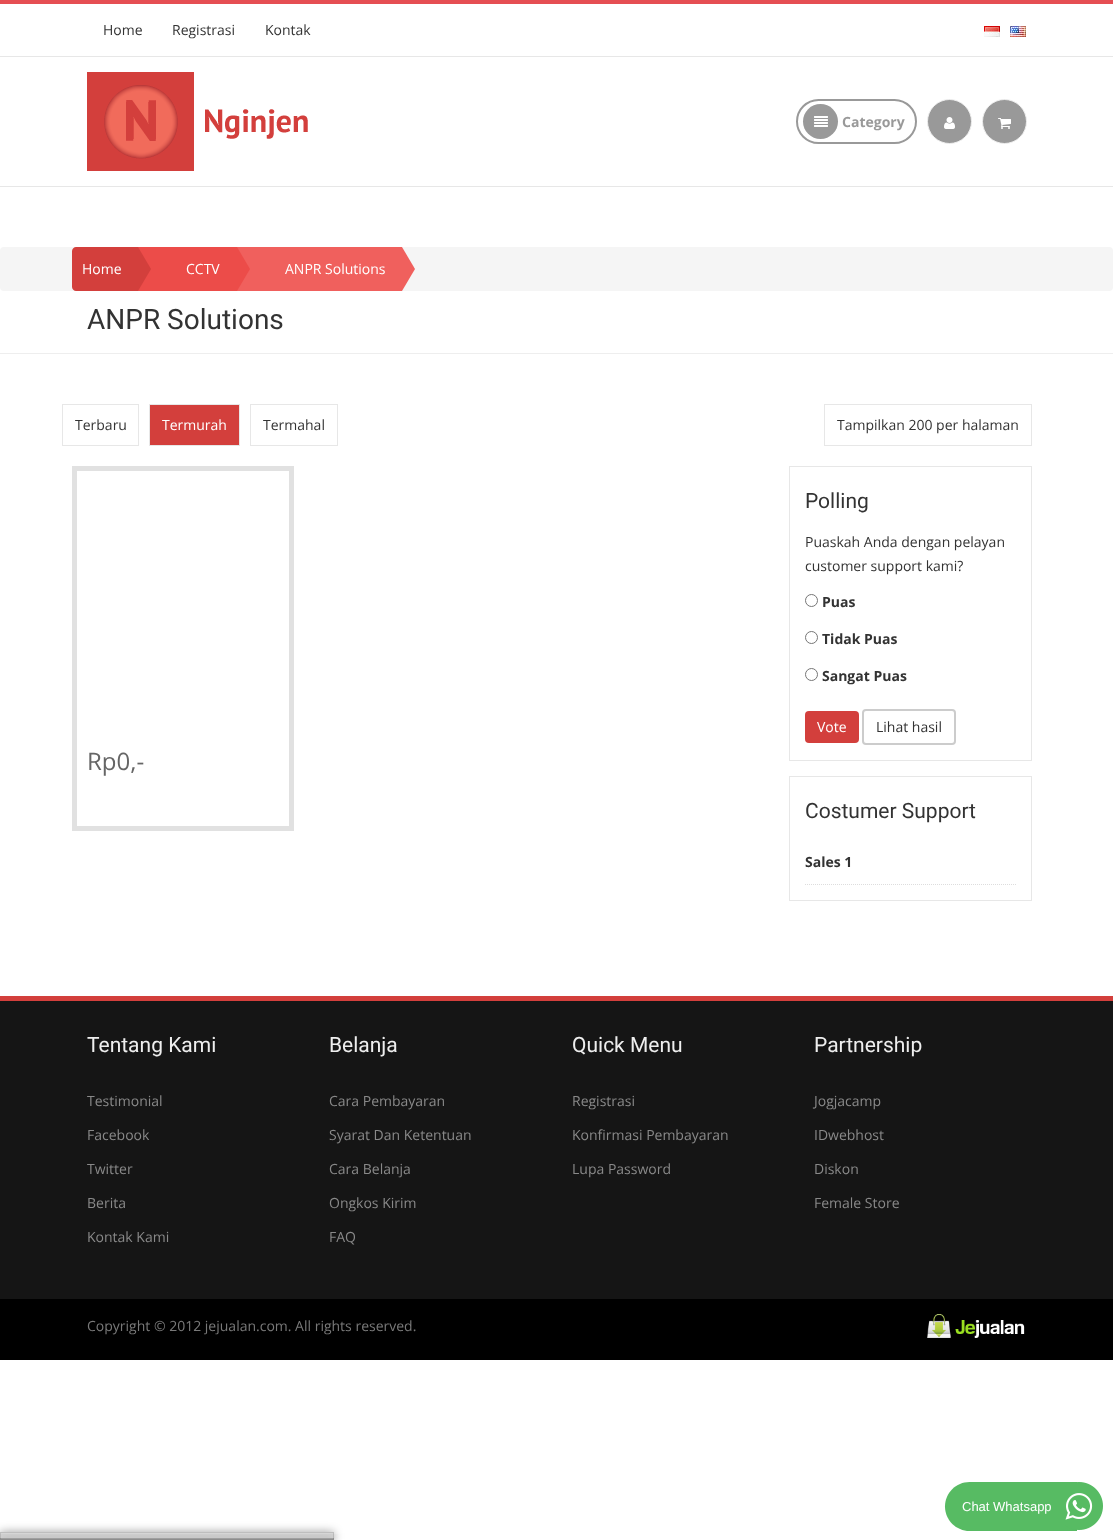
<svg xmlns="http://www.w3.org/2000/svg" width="1113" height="1540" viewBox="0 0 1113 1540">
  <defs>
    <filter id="blur1" x="-50%" y="-200%" width="200%" height="500%"><feGaussianBlur stdDeviation="5"/></filter>
    <clipPath id="clip1"><path d="M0 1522H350V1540H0ZM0 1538H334V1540H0Z" clip-rule="evenodd"/></clipPath>
  </defs>
  <rect width="100%" height="100%" fill="#ffffff"/>
  <rect x="0" y="0" width="1113" height="4" fill="#e54e53"/>
  <rect x="0" y="56" width="1113" height="1" fill="#e7e7e7"/>
  <text x="103" y="35" font-family="Open Sans" font-size="14" fill="#333333">Home</text>
  <text x="172" y="35" font-family="Open Sans" font-size="14" fill="#333333">Registrasi</text>
  <text x="265" y="35" font-family="Open Sans" font-size="14" fill="#333333">Kontak</text>
  <image x="984" y="26" width="16" height="11" href="img1.png"/>
  <image x="1010" y="26" width="16" height="11" href="img2.png"/>
  <rect x="0" y="186" width="1113" height="1" fill="#e7e7e7"/>
  <image x="87" y="72" width="221" height="99" href="img3.png"/>
  <rect x="797" y="100" width="119" height="43" rx="21.5" fill="none" stroke="#999999" stroke-width="2"/>
  <circle cx="820.5" cy="121.5" r="17.5" fill="#999999"/>
  <image x="814" y="116" width="14" height="11" href="img4.png"/>
  <text x="842" y="127" font-family="Open Sans" font-size="14" font-weight="bold" fill="#999999">Category</text>
  <circle cx="949.5" cy="121.5" r="22" fill="#999999" stroke="#eeeeee"/>
  <image x="944" y="117" width="11" height="12" href="img5.png"/>
  <circle cx="1004.5" cy="121.5" r="22" fill="#999999" stroke="#eeeeee"/>
  <image x="998" y="118" width="13" height="11" href="img6.png"/>
  <rect x="0" y="353" width="1113" height="1" fill="#eeeeee"/>
  <rect x="0" y="247" width="1113" height="44" rx="4" fill="#f5f5f5"/>
  <path d="M76 247H121V291H76C74 291 72 289 72 287V251C72 249 74 247 76 247Z" fill="#d33f3c"/>
  <text x="82" y="274" font-family="Open Sans" font-size="14" fill="#ffffff">Home</text>
  <rect x="138" y="247" width="82" height="44" fill="#ec4c49"/>
  <path d="M138 247H121V291H138L151 269Z" fill="#d33f3c"/>
  <text x="186" y="274" font-family="Open Sans" font-size="14" fill="#ffffff">CCTV</text>
  <rect x="237" y="247" width="148" height="44" fill="#f0605d"/>
  <path d="M237 247H220V291H237L250 269Z" fill="#ec4c49"/>
  <text x="285" y="274" font-family="Open Sans" font-size="14" fill="#ffffff">ANPR Solutions</text>
  <path d="M402 247H385V291H402L415 269Z" fill="#f0605d"/>
  <text x="87" y="329" font-family="Roboto" font-size="28" fill="#333333">ANPR Solutions</text>
  <rect x="62.5" y="404.5" width="76" height="41" fill="none" stroke="#e7e7e7"/>
  <text x="75" y="430" font-family="Open Sans" font-size="14" fill="#333333">Terbaru</text>
  <rect x="149.5" y="404.5" width="90" height="41" fill="#d33f3c" stroke="#e7e7e7"/>
  <text x="162" y="430" font-family="Open Sans" font-size="14" fill="#ffffff">Termurah</text>
  <rect x="250.5" y="404.5" width="87" height="41" fill="none" stroke="#e7e7e7"/>
  <text x="263" y="430" font-family="Open Sans" font-size="14" fill="#333333">Termahal</text>
  <rect x="824.5" y="404.5" width="207" height="41" fill="none" stroke="#e7e7e7"/>
  <text x="837" y="430" font-family="Open Sans" font-size="14" fill="#333333">Tampilkan 200 per halaman</text>
  <rect x="74.5" y="468.5" width="217" height="360" fill="none" stroke="#e1e1e1" stroke-width="5"/>
  <text x="87" y="770" font-family="Open Sans" font-size="24" fill="#666666">Rp0,-</text>
  <rect x="789.5" y="466.5" width="242" height="294" fill="none" stroke="#e7e7e7"/>
  <text x="805" y="508" font-family="Roboto" font-size="21" fill="#333333">Polling</text>
  <text x="805" y="547" font-family="Open Sans" font-size="14" fill="#333333">Puaskah Anda dengan pelayan</text>
  <text x="805" y="571" font-family="Open Sans" font-size="14" fill="#333333">customer support kami?</text>
  <circle cx="811.5" cy="600.5" r="6" fill="none" stroke="#767676"/>
  <text x="822" y="607" font-family="Open Sans" font-size="14" font-weight="bold" fill="#333333">Puas</text>
  <circle cx="811.5" cy="637.5" r="6" fill="none" stroke="#767676"/>
  <text x="822" y="644" font-family="Open Sans" font-size="14" font-weight="bold" fill="#333333">Tidak Puas</text>
  <circle cx="811.5" cy="674.5" r="6" fill="none" stroke="#767676"/>
  <text x="822" y="681" font-family="Open Sans" font-size="14" font-weight="bold" fill="#333333">Sangat Puas</text>
  <rect x="805" y="711" width="54" height="32" rx="4" fill="#d33f3c"/>
  <text x="817" y="732" font-family="Open Sans" font-size="14" fill="#ffffff">Vote</text>
  <rect x="863" y="710" width="92" height="34" rx="3" fill="none" stroke="#cccccc" stroke-width="2"/>
  <text x="876" y="732" font-family="Open Sans" font-size="14" fill="#333333">Lihat hasil</text>
  <rect x="789.5" y="776.5" width="242" height="124" fill="none" stroke="#e7e7e7"/>
  <text x="805" y="818" font-family="Roboto" font-size="21" fill="#333333">Costumer Support</text>
  <path d="M805 884.5H1016" fill="none" stroke="#dddddd" stroke-dasharray="1 1"/>
  <text x="805" y="867" font-family="Open Sans" font-size="14" font-weight="bold" fill="#333333">Sales 1</text>
  <rect x="0" y="996" width="1113" height="5" fill="#d33f3c"/>
  <rect x="0" y="1001" width="1113" height="298" fill="#151515"/>
  <text x="87" y="1052" font-family="Roboto" font-size="21" fill="#eeeeee">Tentang Kami</text>
  <text x="87" y="1106" font-family="Open Sans" font-size="14" fill="#898989">Testimonial</text>
  <text x="87" y="1140" font-family="Open Sans" font-size="14" fill="#898989">Facebook</text>
  <text x="87" y="1174" font-family="Open Sans" font-size="14" fill="#898989">Twitter</text>
  <text x="87" y="1208" font-family="Open Sans" font-size="14" fill="#898989">Berita</text>
  <text x="87" y="1242" font-family="Open Sans" font-size="14" fill="#898989">Kontak Kami</text>
  <text x="329" y="1052" font-family="Roboto" font-size="21" fill="#eeeeee">Belanja</text>
  <text x="329" y="1106" font-family="Open Sans" font-size="14" fill="#898989">Cara Pembayaran</text>
  <text x="329" y="1140" font-family="Open Sans" font-size="14" fill="#898989">Syarat Dan Ketentuan</text>
  <text x="329" y="1174" font-family="Open Sans" font-size="14" fill="#898989">Cara Belanja</text>
  <text x="329" y="1208" font-family="Open Sans" font-size="14" fill="#898989">Ongkos Kirim</text>
  <text x="329" y="1242" font-family="Open Sans" font-size="14" fill="#898989">FAQ</text>
  <text x="572" y="1052" font-family="Roboto" font-size="21" fill="#eeeeee">Quick Menu</text>
  <text x="572" y="1106" font-family="Open Sans" font-size="14" fill="#898989">Registrasi</text>
  <text x="572" y="1140" font-family="Open Sans" font-size="14" fill="#898989">Konfirmasi Pembayaran</text>
  <text x="572" y="1174" font-family="Open Sans" font-size="14" fill="#898989">Lupa Password</text>
  <text x="814" y="1052" font-family="Roboto" font-size="21" fill="#eeeeee">Partnership</text>
  <text x="814" y="1106" font-family="Open Sans" font-size="14" fill="#898989">Jogjacamp</text>
  <text x="814" y="1140" font-family="Open Sans" font-size="14" fill="#898989">IDwebhost</text>
  <text x="814" y="1174" font-family="Open Sans" font-size="14" fill="#898989">Diskon</text>
  <text x="814" y="1208" font-family="Open Sans" font-size="14" fill="#898989">Female Store</text>
  <rect x="0" y="1299" width="1113" height="61" fill="#000000"/>
  <text x="87" y="1331" font-family="Open Sans" font-size="14" fill="#797979">Copyright © 2012 jejualan.com. All rights reserved.</text>
  <image x="927" y="1314" width="98" height="24" href="img7.png"/>
  <rect x="0" y="1532" width="334" height="8" fill="#000000" fill-opacity="0.4" filter="url(#blur1)"/>
  <rect x="0.5" y="1532.5" width="333" height="7" fill="#d6d6d6" stroke="#bebebe"/>
  <path d="M969.5 1482H1077V1531H969.5C956 1531 945 1520 945 1506.5C945 1493 956 1482 969.5 1482Z" fill="#57bb63"/>
  <text x="962" y="1511" font-family="Liberation Sans" font-size="13" fill="#ffffff">Chat Whatsapp</text>
  <image x="1065" y="1482" width="38" height="48" href="img8.png"/>
  <g clip-path="url(#clip1)">
    <rect x="0" y="1538" width="334" height="2" fill="#000000" fill-opacity="0.4" filter="url(#blur1)"/>
  </g>
  <rect x="0" y="1538" width="334" height="2" fill="#000000" fill-opacity="0.16"/>
  <rect x="0" y="1538" width="334" height="2" fill="#000000" fill-opacity="0.11"/>
</svg>
